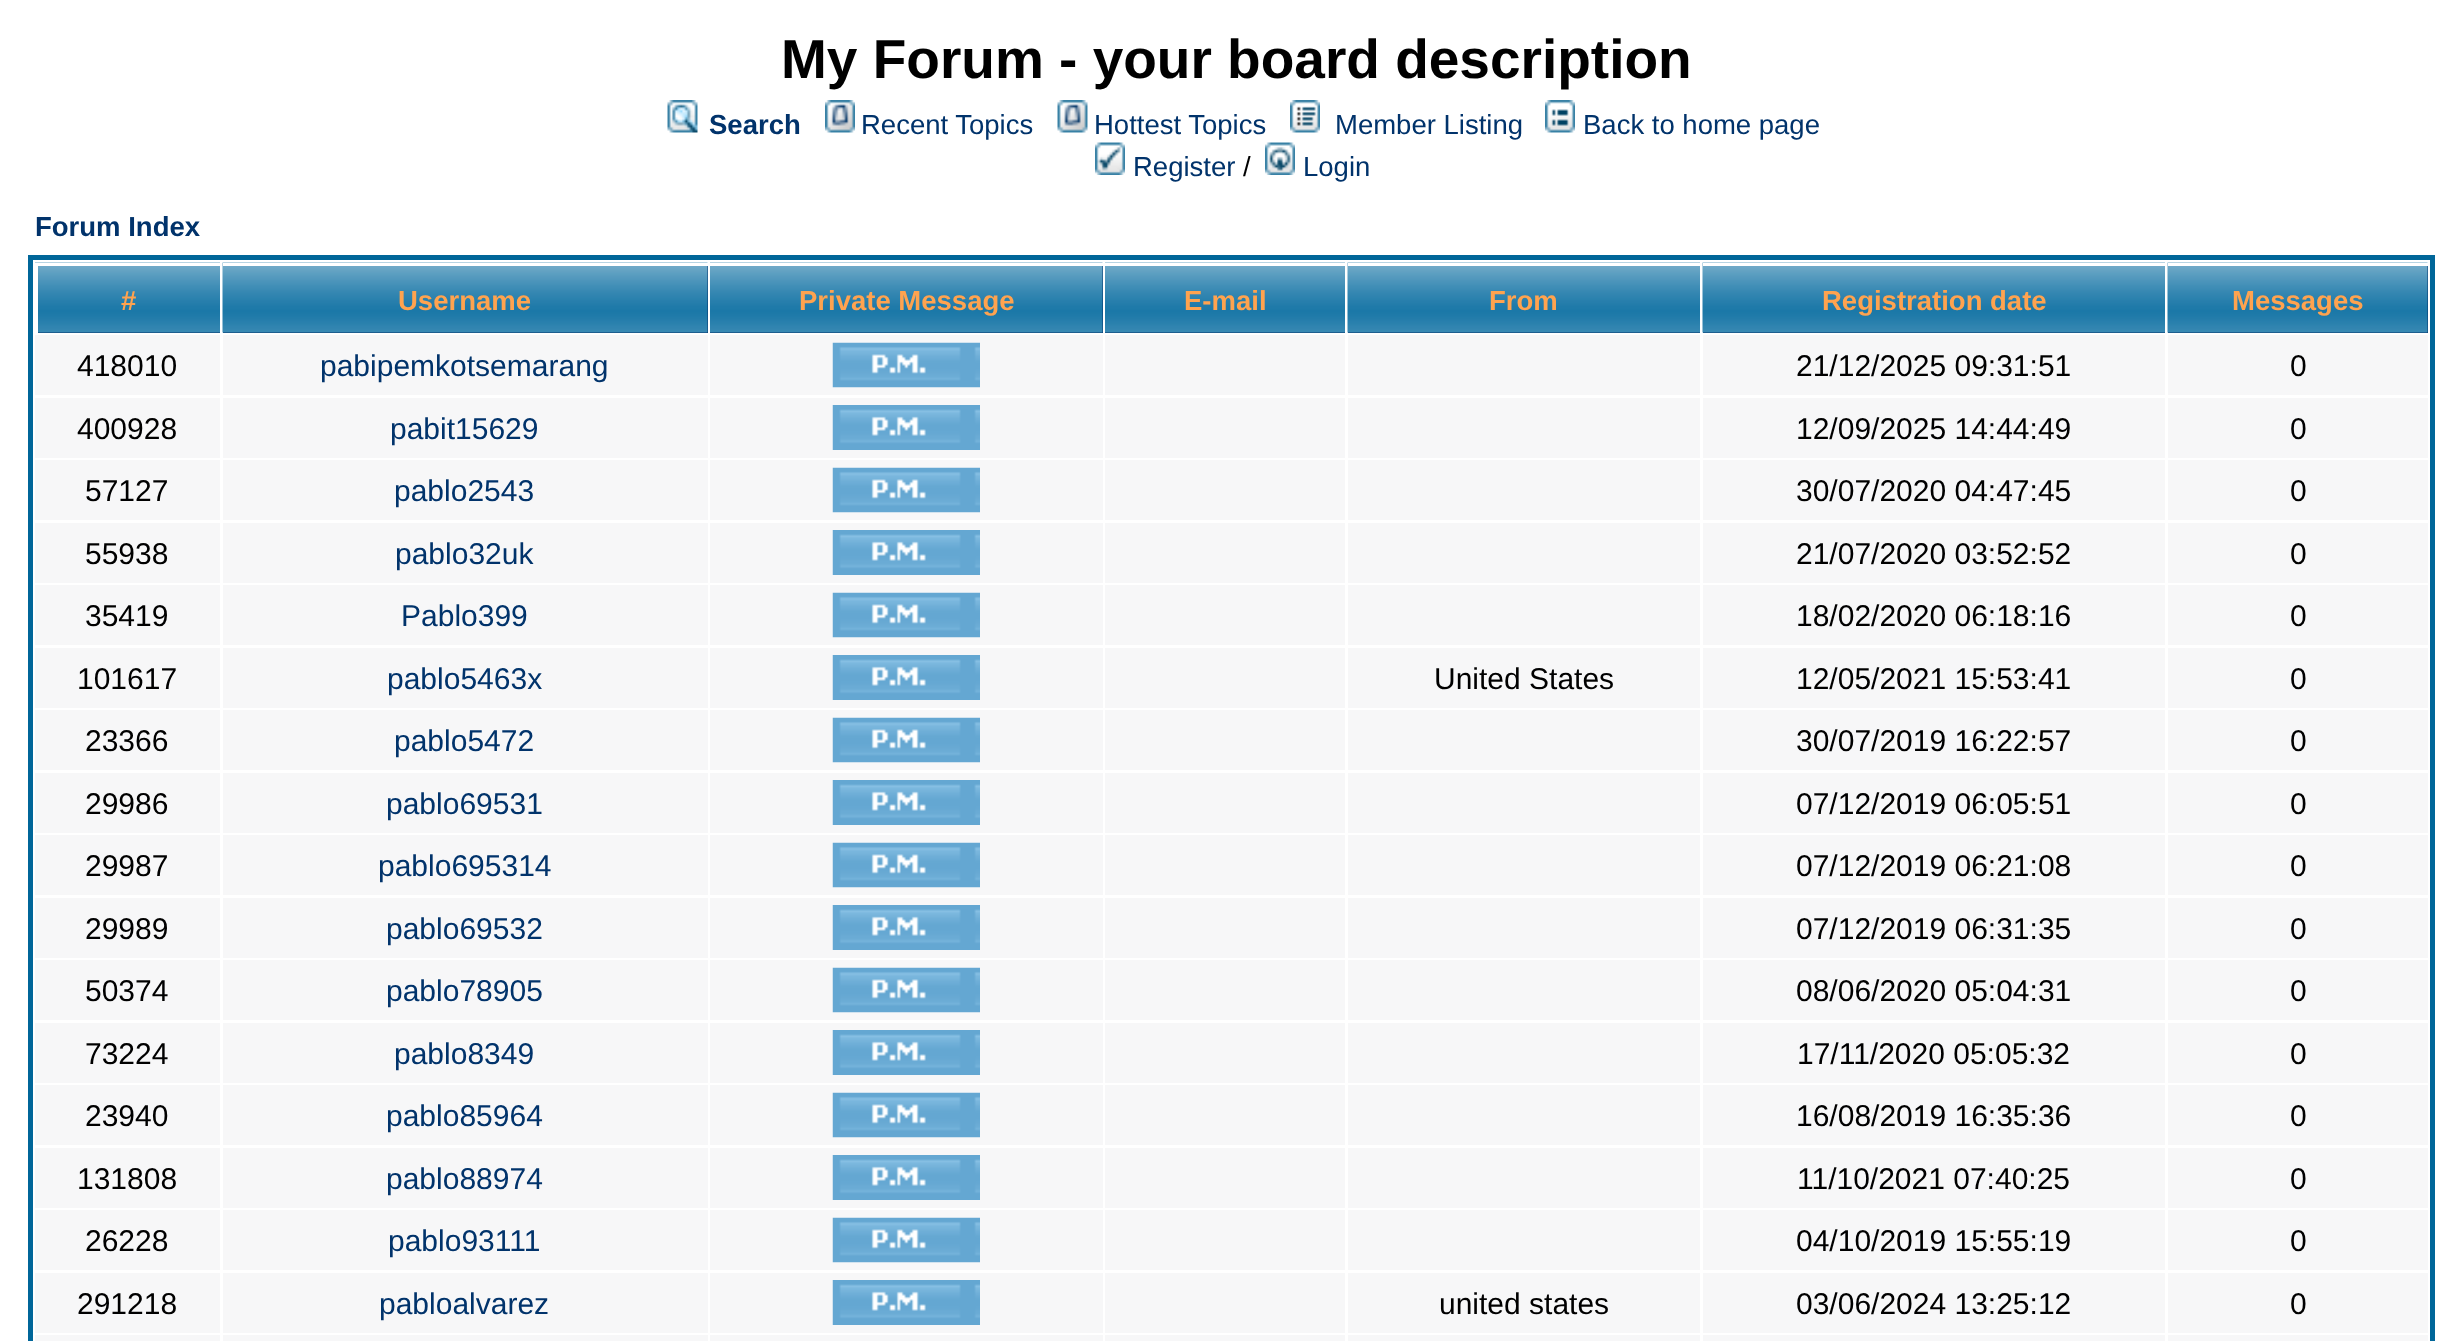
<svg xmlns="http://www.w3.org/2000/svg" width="2462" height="1341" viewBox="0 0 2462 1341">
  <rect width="100%" height="100%" fill="#ffffff"/>
  <text x="781" y="78" font-family="Liberation Sans" font-size="55" font-weight="bold" fill="#000000">My Forum - your board description</text>
  <image x="667" y="100" width="31" height="33" href="img1.png"/>
  <text x="709" y="134" font-family="Liberation Sans" font-size="27.5" font-weight="bold" fill="#01336b">Search</text>
  <image x="825" y="100" width="30" height="33" href="img2.png"/>
  <text x="861" y="134" font-family="Liberation Sans" font-size="27.5" fill="#01336b">Recent Topics</text>
  <image x="1057" y="100" width="31" height="33" href="img3.png"/>
  <text x="1094" y="134" font-family="Liberation Sans" font-size="27.5" fill="#01336b">Hottest Topics</text>
  <image x="1290" y="100" width="30" height="33" href="img4.png"/>
  <text x="1335" y="134" font-family="Liberation Sans" font-size="27.5" fill="#01336b">Member Listing</text>
  <image x="1545" y="100" width="30" height="33" href="img5.png"/>
  <text x="1583" y="134" font-family="Liberation Sans" font-size="27.5" fill="#01336b">Back to home page</text>
  <image x="1095" y="142" width="30" height="33" href="img6.png"/>
  <text x="1133" y="176" font-family="Liberation Sans" font-size="27.5" fill="#01336b">Register</text>
  <text x="1243" y="176" font-family="Liberation Sans" font-size="27.5" fill="#000000">/</text>
  <image x="1265" y="142" width="30" height="33" href="img7.png"/>
  <text x="1303" y="176" font-family="Liberation Sans" font-size="27.5" fill="#01336b">Login</text>
  <text x="35" y="236" font-family="Liberation Sans" font-size="27.5" font-weight="bold" fill="#01336b">Forum Index</text>
  <rect x="30.5" y="257.5" width="2402" height="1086" fill="none" stroke="#006699" stroke-width="5"/>
  <rect x="38" y="332" width="182" height="1" fill="#01336b"/>
  <image x="35" y="262" width="185" height="71" href="img8.png"/>
  <rect x="35" y="263" width="185" height="3" fill="#ffffff"/>
  <rect x="35" y="263" width="3" height="70" fill="#ffffff"/>
  <text x="121" y="310" font-family="Liberation Sans" font-size="27.5" font-weight="bold" fill="#ffa34f">#</text>
  <rect x="223" y="266" width="485" height="67" fill="#01336b"/>
  <image x="222" y="262" width="486" height="71" href="img9.png"/>
  <rect x="223" y="263" width="485" height="3" fill="#ffffff"/>
  <text x="398" y="310" font-family="Liberation Sans" font-size="27.5" font-weight="bold" fill="#ffa34f">Username</text>
  <rect x="710" y="266" width="393" height="67" fill="#01336b"/>
  <image x="710" y="262" width="393" height="71" href="img10.png"/>
  <rect x="710" y="263" width="393" height="3" fill="#ffffff"/>
  <text x="799" y="310" font-family="Liberation Sans" font-size="27.5" font-weight="bold" fill="#ffa34f">Private Message</text>
  <rect x="1105" y="332" width="240" height="1" fill="#01336b"/>
  <image x="1105" y="262" width="240" height="71" href="img11.png"/>
  <rect x="1105" y="263" width="240" height="3" fill="#ffffff"/>
  <text x="1184" y="310" font-family="Liberation Sans" font-size="27.5" font-weight="bold" fill="#ffa34f">E-mail</text>
  <rect x="1348" y="332" width="352" height="1" fill="#01336b"/>
  <image x="1347" y="262" width="353" height="71" href="img12.png"/>
  <rect x="1348" y="263" width="352" height="3" fill="#ffffff"/>
  <text x="1489" y="310" font-family="Liberation Sans" font-size="27.5" font-weight="bold" fill="#ffa34f">From</text>
  <rect x="1703" y="332" width="462" height="1" fill="#01336b"/>
  <image x="1702" y="262" width="463" height="71" href="img13.png"/>
  <rect x="1703" y="263" width="462" height="3" fill="#ffffff"/>
  <text x="1822" y="310" font-family="Liberation Sans" font-size="27.5" font-weight="bold" fill="#ffa34f">Registration date</text>
  <rect x="2168" y="266" width="260" height="67" fill="#01336b"/>
  <image x="2167" y="262" width="261" height="71" href="img14.png"/>
  <rect x="2168" y="263" width="260" height="3" fill="#ffffff"/>
  <text x="2232" y="310" font-family="Liberation Sans" font-size="27.5" font-weight="bold" fill="#ffa34f">Messages</text>
  <rect x="35" y="335" width="185" height="60" fill="#f7f7f8"/>
  <text x="77" y="376" font-family="Liberation Sans" font-size="30" fill="#000000">418010</text>
  <rect x="223" y="335" width="485" height="60" fill="#f7f7f8"/>
  <text x="320" y="376" font-family="Liberation Sans" font-size="30" fill="#01336b">pabipemkotsemarang</text>
  <rect x="710" y="335" width="393" height="60" fill="#f7f7f8"/>
  <image x="832" y="342" width="148" height="46" href="img15.png"/>
  <rect x="1105" y="335" width="240" height="60" fill="#f7f7f8"/>
  <rect x="1348" y="335" width="352" height="60" fill="#f7f7f8"/>
  <rect x="1703" y="335" width="462" height="60" fill="#f7f7f8"/>
  <text x="1796" y="376" font-family="Liberation Sans" font-size="30" fill="#000000">21/12/2025 09:31:51</text>
  <rect x="2168" y="335" width="260" height="60" fill="#f7f7f8"/>
  <text x="2290" y="376" font-family="Liberation Sans" font-size="30" fill="#000000">0</text>
  <rect x="35" y="398" width="185" height="60" fill="#f7f7f8"/>
  <text x="77" y="439" font-family="Liberation Sans" font-size="30" fill="#000000">400928</text>
  <rect x="223" y="398" width="485" height="60" fill="#f7f7f8"/>
  <text x="390" y="439" font-family="Liberation Sans" font-size="30" fill="#01336b">pabit15629</text>
  <rect x="710" y="398" width="393" height="60" fill="#f7f7f8"/>
  <image x="832" y="405" width="148" height="45" href="img16.png"/>
  <rect x="1105" y="398" width="240" height="60" fill="#f7f7f8"/>
  <rect x="1348" y="398" width="352" height="60" fill="#f7f7f8"/>
  <rect x="1703" y="398" width="462" height="60" fill="#f7f7f8"/>
  <text x="1796" y="439" font-family="Liberation Sans" font-size="30" fill="#000000">12/09/2025 14:44:49</text>
  <rect x="2168" y="398" width="260" height="60" fill="#f7f7f8"/>
  <text x="2290" y="439" font-family="Liberation Sans" font-size="30" fill="#000000">0</text>
  <rect x="35" y="460" width="185" height="60" fill="#f7f7f8"/>
  <text x="85" y="501" font-family="Liberation Sans" font-size="30" fill="#000000">57127</text>
  <rect x="223" y="460" width="485" height="60" fill="#f7f7f8"/>
  <text x="394" y="501" font-family="Liberation Sans" font-size="30" fill="#01336b">pablo2543</text>
  <rect x="710" y="460" width="393" height="60" fill="#f7f7f8"/>
  <image x="832" y="467" width="148" height="46" href="img15.png"/>
  <rect x="1105" y="460" width="240" height="60" fill="#f7f7f8"/>
  <rect x="1348" y="460" width="352" height="60" fill="#f7f7f8"/>
  <rect x="1703" y="460" width="462" height="60" fill="#f7f7f8"/>
  <text x="1796" y="501" font-family="Liberation Sans" font-size="30" fill="#000000">30/07/2020 04:47:45</text>
  <rect x="2168" y="460" width="260" height="60" fill="#f7f7f8"/>
  <text x="2290" y="501" font-family="Liberation Sans" font-size="30" fill="#000000">0</text>
  <rect x="35" y="523" width="185" height="60" fill="#f7f7f8"/>
  <text x="85" y="564" font-family="Liberation Sans" font-size="30" fill="#000000">55938</text>
  <rect x="223" y="523" width="485" height="60" fill="#f7f7f8"/>
  <text x="395" y="564" font-family="Liberation Sans" font-size="30" fill="#01336b">pablo32uk</text>
  <rect x="710" y="523" width="393" height="60" fill="#f7f7f8"/>
  <image x="832" y="530" width="148" height="45" href="img16.png"/>
  <rect x="1105" y="523" width="240" height="60" fill="#f7f7f8"/>
  <rect x="1348" y="523" width="352" height="60" fill="#f7f7f8"/>
  <rect x="1703" y="523" width="462" height="60" fill="#f7f7f8"/>
  <text x="1796" y="564" font-family="Liberation Sans" font-size="30" fill="#000000">21/07/2020 03:52:52</text>
  <rect x="2168" y="523" width="260" height="60" fill="#f7f7f8"/>
  <text x="2290" y="564" font-family="Liberation Sans" font-size="30" fill="#000000">0</text>
  <rect x="35" y="585" width="185" height="60" fill="#f7f7f8"/>
  <text x="85" y="626" font-family="Liberation Sans" font-size="30" fill="#000000">35419</text>
  <rect x="223" y="585" width="485" height="60" fill="#f7f7f8"/>
  <text x="401" y="626" font-family="Liberation Sans" font-size="30" fill="#01336b">Pablo399</text>
  <rect x="710" y="585" width="393" height="60" fill="#f7f7f8"/>
  <image x="832" y="592" width="148" height="46" href="img15.png"/>
  <rect x="1105" y="585" width="240" height="60" fill="#f7f7f8"/>
  <rect x="1348" y="585" width="352" height="60" fill="#f7f7f8"/>
  <rect x="1703" y="585" width="462" height="60" fill="#f7f7f8"/>
  <text x="1796" y="626" font-family="Liberation Sans" font-size="30" fill="#000000">18/02/2020 06:18:16</text>
  <rect x="2168" y="585" width="260" height="60" fill="#f7f7f8"/>
  <text x="2290" y="626" font-family="Liberation Sans" font-size="30" fill="#000000">0</text>
  <rect x="35" y="648" width="185" height="60" fill="#f7f7f8"/>
  <text x="77" y="689" font-family="Liberation Sans" font-size="30" fill="#000000">101617</text>
  <rect x="223" y="648" width="485" height="60" fill="#f7f7f8"/>
  <text x="387" y="689" font-family="Liberation Sans" font-size="30" fill="#01336b">pablo5463x</text>
  <rect x="710" y="648" width="393" height="60" fill="#f7f7f8"/>
  <image x="832" y="655" width="148" height="45" href="img16.png"/>
  <rect x="1105" y="648" width="240" height="60" fill="#f7f7f8"/>
  <rect x="1348" y="648" width="352" height="60" fill="#f7f7f8"/>
  <text x="1434" y="689" font-family="Liberation Sans" font-size="30" fill="#000000">United States</text>
  <rect x="1703" y="648" width="462" height="60" fill="#f7f7f8"/>
  <text x="1796" y="689" font-family="Liberation Sans" font-size="30" fill="#000000">12/05/2021 15:53:41</text>
  <rect x="2168" y="648" width="260" height="60" fill="#f7f7f8"/>
  <text x="2290" y="689" font-family="Liberation Sans" font-size="30" fill="#000000">0</text>
  <rect x="35" y="710" width="185" height="60" fill="#f7f7f8"/>
  <text x="85" y="751" font-family="Liberation Sans" font-size="30" fill="#000000">23366</text>
  <rect x="223" y="710" width="485" height="60" fill="#f7f7f8"/>
  <text x="394" y="751" font-family="Liberation Sans" font-size="30" fill="#01336b">pablo5472</text>
  <rect x="710" y="710" width="393" height="60" fill="#f7f7f8"/>
  <image x="832" y="717" width="148" height="46" href="img15.png"/>
  <rect x="1105" y="710" width="240" height="60" fill="#f7f7f8"/>
  <rect x="1348" y="710" width="352" height="60" fill="#f7f7f8"/>
  <rect x="1703" y="710" width="462" height="60" fill="#f7f7f8"/>
  <text x="1796" y="751" font-family="Liberation Sans" font-size="30" fill="#000000">30/07/2019 16:22:57</text>
  <rect x="2168" y="710" width="260" height="60" fill="#f7f7f8"/>
  <text x="2290" y="751" font-family="Liberation Sans" font-size="30" fill="#000000">0</text>
  <rect x="35" y="773" width="185" height="60" fill="#f7f7f8"/>
  <text x="85" y="814" font-family="Liberation Sans" font-size="30" fill="#000000">29986</text>
  <rect x="223" y="773" width="485" height="60" fill="#f7f7f8"/>
  <text x="386" y="814" font-family="Liberation Sans" font-size="30" fill="#01336b">pablo69531</text>
  <rect x="710" y="773" width="393" height="60" fill="#f7f7f8"/>
  <image x="832" y="780" width="148" height="45" href="img16.png"/>
  <rect x="1105" y="773" width="240" height="60" fill="#f7f7f8"/>
  <rect x="1348" y="773" width="352" height="60" fill="#f7f7f8"/>
  <rect x="1703" y="773" width="462" height="60" fill="#f7f7f8"/>
  <text x="1796" y="814" font-family="Liberation Sans" font-size="30" fill="#000000">07/12/2019 06:05:51</text>
  <rect x="2168" y="773" width="260" height="60" fill="#f7f7f8"/>
  <text x="2290" y="814" font-family="Liberation Sans" font-size="30" fill="#000000">0</text>
  <rect x="35" y="835" width="185" height="60" fill="#f7f7f8"/>
  <text x="85" y="876" font-family="Liberation Sans" font-size="30" fill="#000000">29987</text>
  <rect x="223" y="835" width="485" height="60" fill="#f7f7f8"/>
  <text x="378" y="876" font-family="Liberation Sans" font-size="30" fill="#01336b">pablo695314</text>
  <rect x="710" y="835" width="393" height="60" fill="#f7f7f8"/>
  <image x="832" y="842" width="148" height="46" href="img15.png"/>
  <rect x="1105" y="835" width="240" height="60" fill="#f7f7f8"/>
  <rect x="1348" y="835" width="352" height="60" fill="#f7f7f8"/>
  <rect x="1703" y="835" width="462" height="60" fill="#f7f7f8"/>
  <text x="1796" y="876" font-family="Liberation Sans" font-size="30" fill="#000000">07/12/2019 06:21:08</text>
  <rect x="2168" y="835" width="260" height="60" fill="#f7f7f8"/>
  <text x="2290" y="876" font-family="Liberation Sans" font-size="30" fill="#000000">0</text>
  <rect x="35" y="898" width="185" height="60" fill="#f7f7f8"/>
  <text x="85" y="939" font-family="Liberation Sans" font-size="30" fill="#000000">29989</text>
  <rect x="223" y="898" width="485" height="60" fill="#f7f7f8"/>
  <text x="386" y="939" font-family="Liberation Sans" font-size="30" fill="#01336b">pablo69532</text>
  <rect x="710" y="898" width="393" height="60" fill="#f7f7f8"/>
  <image x="832" y="905" width="148" height="45" href="img16.png"/>
  <rect x="1105" y="898" width="240" height="60" fill="#f7f7f8"/>
  <rect x="1348" y="898" width="352" height="60" fill="#f7f7f8"/>
  <rect x="1703" y="898" width="462" height="60" fill="#f7f7f8"/>
  <text x="1796" y="939" font-family="Liberation Sans" font-size="30" fill="#000000">07/12/2019 06:31:35</text>
  <rect x="2168" y="898" width="260" height="60" fill="#f7f7f8"/>
  <text x="2290" y="939" font-family="Liberation Sans" font-size="30" fill="#000000">0</text>
  <rect x="35" y="960" width="185" height="60" fill="#f7f7f8"/>
  <text x="85" y="1001" font-family="Liberation Sans" font-size="30" fill="#000000">50374</text>
  <rect x="223" y="960" width="485" height="60" fill="#f7f7f8"/>
  <text x="386" y="1001" font-family="Liberation Sans" font-size="30" fill="#01336b">pablo78905</text>
  <rect x="710" y="960" width="393" height="60" fill="#f7f7f8"/>
  <image x="832" y="967" width="148" height="46" href="img15.png"/>
  <rect x="1105" y="960" width="240" height="60" fill="#f7f7f8"/>
  <rect x="1348" y="960" width="352" height="60" fill="#f7f7f8"/>
  <rect x="1703" y="960" width="462" height="60" fill="#f7f7f8"/>
  <text x="1796" y="1001" font-family="Liberation Sans" font-size="30" fill="#000000">08/06/2020 05:04:31</text>
  <rect x="2168" y="960" width="260" height="60" fill="#f7f7f8"/>
  <text x="2290" y="1001" font-family="Liberation Sans" font-size="30" fill="#000000">0</text>
  <rect x="35" y="1023" width="185" height="60" fill="#f7f7f8"/>
  <text x="85" y="1064" font-family="Liberation Sans" font-size="30" fill="#000000">73224</text>
  <rect x="223" y="1023" width="485" height="60" fill="#f7f7f8"/>
  <text x="394" y="1064" font-family="Liberation Sans" font-size="30" fill="#01336b">pablo8349</text>
  <rect x="710" y="1023" width="393" height="60" fill="#f7f7f8"/>
  <image x="832" y="1030" width="148" height="45" href="img16.png"/>
  <rect x="1105" y="1023" width="240" height="60" fill="#f7f7f8"/>
  <rect x="1348" y="1023" width="352" height="60" fill="#f7f7f8"/>
  <rect x="1703" y="1023" width="462" height="60" fill="#f7f7f8"/>
  <text x="1797" y="1064" font-family="Liberation Sans" font-size="30" fill="#000000">17/11/2020 05:05:32</text>
  <rect x="2168" y="1023" width="260" height="60" fill="#f7f7f8"/>
  <text x="2290" y="1064" font-family="Liberation Sans" font-size="30" fill="#000000">0</text>
  <rect x="35" y="1085" width="185" height="60" fill="#f7f7f8"/>
  <text x="85" y="1126" font-family="Liberation Sans" font-size="30" fill="#000000">23940</text>
  <rect x="223" y="1085" width="485" height="60" fill="#f7f7f8"/>
  <text x="386" y="1126" font-family="Liberation Sans" font-size="30" fill="#01336b">pablo85964</text>
  <rect x="710" y="1085" width="393" height="60" fill="#f7f7f8"/>
  <image x="832" y="1092" width="148" height="46" href="img15.png"/>
  <rect x="1105" y="1085" width="240" height="60" fill="#f7f7f8"/>
  <rect x="1348" y="1085" width="352" height="60" fill="#f7f7f8"/>
  <rect x="1703" y="1085" width="462" height="60" fill="#f7f7f8"/>
  <text x="1796" y="1126" font-family="Liberation Sans" font-size="30" fill="#000000">16/08/2019 16:35:36</text>
  <rect x="2168" y="1085" width="260" height="60" fill="#f7f7f8"/>
  <text x="2290" y="1126" font-family="Liberation Sans" font-size="30" fill="#000000">0</text>
  <rect x="35" y="1148" width="185" height="60" fill="#f7f7f8"/>
  <text x="77" y="1189" font-family="Liberation Sans" font-size="30" fill="#000000">131808</text>
  <rect x="223" y="1148" width="485" height="60" fill="#f7f7f8"/>
  <text x="386" y="1189" font-family="Liberation Sans" font-size="30" fill="#01336b">pablo88974</text>
  <rect x="710" y="1148" width="393" height="60" fill="#f7f7f8"/>
  <image x="832" y="1155" width="148" height="45" href="img16.png"/>
  <rect x="1105" y="1148" width="240" height="60" fill="#f7f7f8"/>
  <rect x="1348" y="1148" width="352" height="60" fill="#f7f7f8"/>
  <rect x="1703" y="1148" width="462" height="60" fill="#f7f7f8"/>
  <text x="1797" y="1189" font-family="Liberation Sans" font-size="30" fill="#000000">11/10/2021 07:40:25</text>
  <rect x="2168" y="1148" width="260" height="60" fill="#f7f7f8"/>
  <text x="2290" y="1189" font-family="Liberation Sans" font-size="30" fill="#000000">0</text>
  <rect x="35" y="1210" width="185" height="60" fill="#f7f7f8"/>
  <text x="85" y="1251" font-family="Liberation Sans" font-size="30" fill="#000000">26228</text>
  <rect x="223" y="1210" width="485" height="60" fill="#f7f7f8"/>
  <text x="388" y="1251" font-family="Liberation Sans" font-size="30" fill="#01336b">pablo93111</text>
  <rect x="710" y="1210" width="393" height="60" fill="#f7f7f8"/>
  <image x="832" y="1217" width="148" height="46" href="img15.png"/>
  <rect x="1105" y="1210" width="240" height="60" fill="#f7f7f8"/>
  <rect x="1348" y="1210" width="352" height="60" fill="#f7f7f8"/>
  <rect x="1703" y="1210" width="462" height="60" fill="#f7f7f8"/>
  <text x="1796" y="1251" font-family="Liberation Sans" font-size="30" fill="#000000">04/10/2019 15:55:19</text>
  <rect x="2168" y="1210" width="260" height="60" fill="#f7f7f8"/>
  <text x="2290" y="1251" font-family="Liberation Sans" font-size="30" fill="#000000">0</text>
  <rect x="35" y="1273" width="185" height="60" fill="#f7f7f8"/>
  <text x="77" y="1314" font-family="Liberation Sans" font-size="30" fill="#000000">291218</text>
  <rect x="223" y="1273" width="485" height="60" fill="#f7f7f8"/>
  <text x="379" y="1314" font-family="Liberation Sans" font-size="30" fill="#01336b">pabloalvarez</text>
  <rect x="710" y="1273" width="393" height="60" fill="#f7f7f8"/>
  <image x="832" y="1280" width="148" height="45" href="img16.png"/>
  <rect x="1105" y="1273" width="240" height="60" fill="#f7f7f8"/>
  <rect x="1348" y="1273" width="352" height="60" fill="#f7f7f8"/>
  <text x="1439" y="1314" font-family="Liberation Sans" font-size="30" fill="#000000">united states</text>
  <rect x="1703" y="1273" width="462" height="60" fill="#f7f7f8"/>
  <text x="1796" y="1314" font-family="Liberation Sans" font-size="30" fill="#000000">03/06/2024 13:25:12</text>
  <rect x="2168" y="1273" width="260" height="60" fill="#f7f7f8"/>
  <text x="2290" y="1314" font-family="Liberation Sans" font-size="30" fill="#000000">0</text>
  <rect x="35" y="1335" width="185" height="6" fill="#f7f7f8"/>
  <rect x="223" y="1335" width="485" height="6" fill="#f7f7f8"/>
  <rect x="710" y="1335" width="393" height="6" fill="#f7f7f8"/>
  <rect x="1105" y="1335" width="240" height="6" fill="#f7f7f8"/>
  <rect x="1348" y="1335" width="352" height="6" fill="#f7f7f8"/>
  <rect x="1703" y="1335" width="462" height="6" fill="#f7f7f8"/>
  <rect x="2168" y="1335" width="260" height="6" fill="#f7f7f8"/>
</svg>
